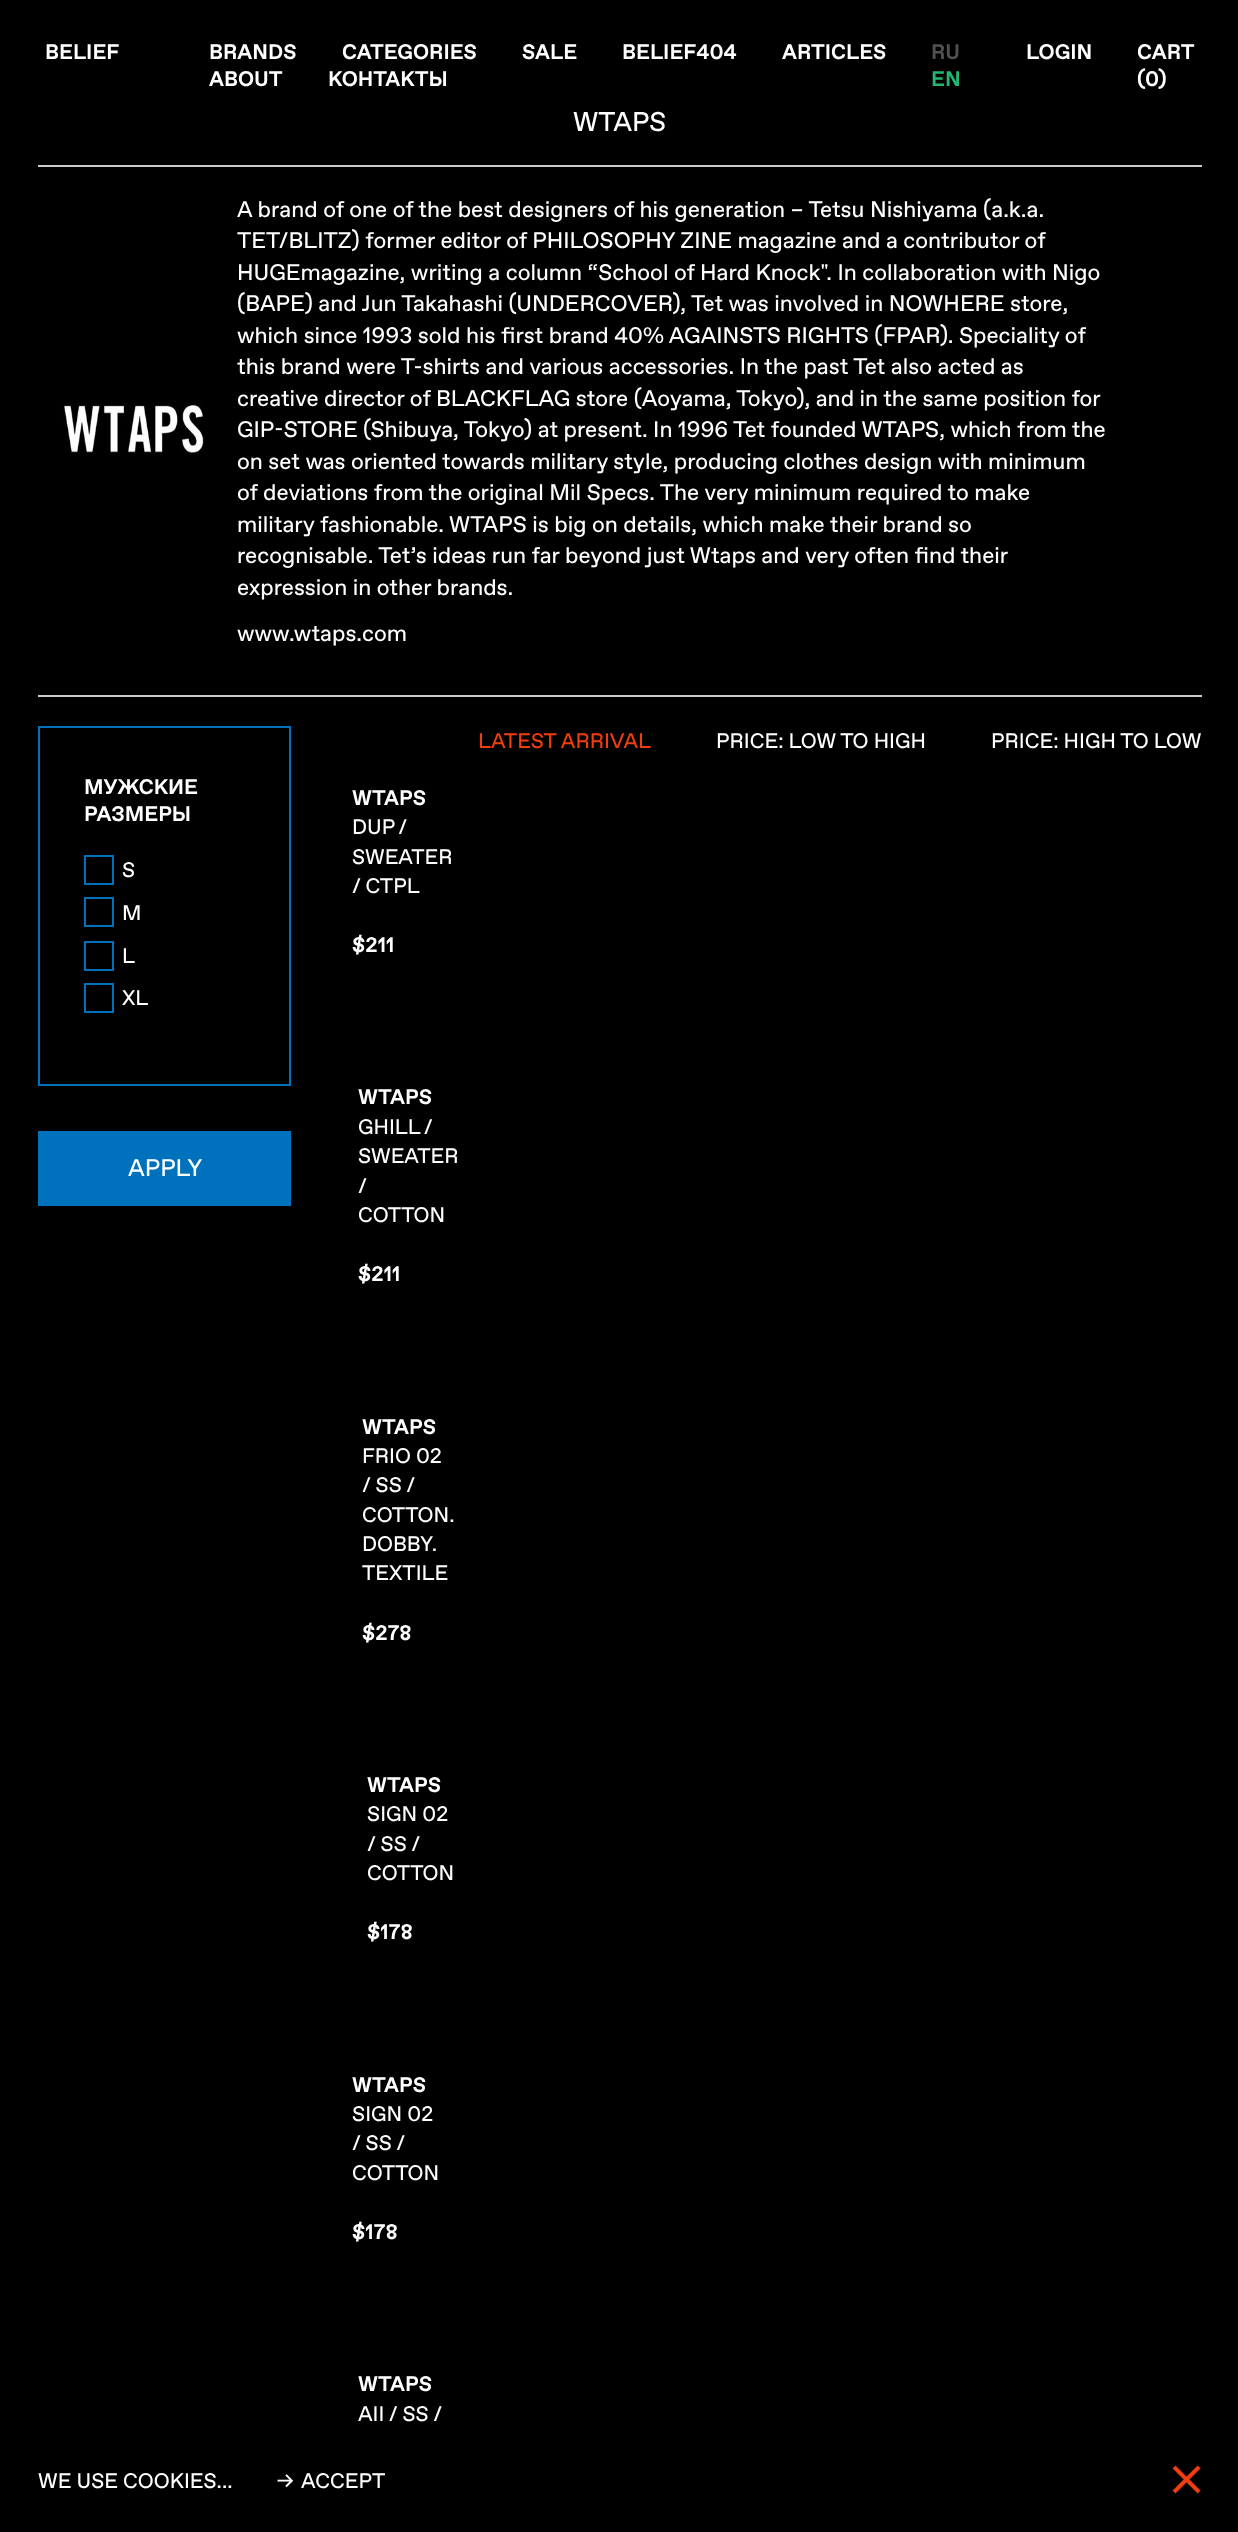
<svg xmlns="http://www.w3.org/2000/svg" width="1238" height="2532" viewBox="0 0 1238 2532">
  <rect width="100%" height="100%" fill="#000000"/>
  <text x="45" y="59" font-family="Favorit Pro" font-size="21" font-weight="bold" fill="#ffffff">BELIEF</text>
  <text x="209" y="59" font-family="Favorit Pro" font-size="21" font-weight="bold" fill="#ffffff">BRANDS</text>
  <text x="342" y="59" font-family="Favorit Pro" font-size="21" font-weight="bold" fill="#ffffff">CATEGORIES</text>
  <text x="522" y="59" font-family="Favorit Pro" font-size="21" font-weight="bold" fill="#ffffff">SALE</text>
  <text x="622" y="59" font-family="Favorit Pro" font-size="21" font-weight="bold" fill="#ffffff">BELIEF404</text>
  <text x="782" y="59" font-family="Favorit Pro" font-size="21" font-weight="bold" fill="#ffffff">ARTICLES</text>
  <text x="209" y="86" font-family="Favorit Pro" font-size="21" font-weight="bold" fill="#ffffff">ABOUT</text>
  <text x="328" y="86" font-family="Favorit Pro" font-size="21" font-weight="bold" fill="#ffffff">КОНТАКТЫ</text>
  <text x="931" y="59" font-family="Favorit Pro" font-size="21" font-weight="bold" fill="#525252">RU</text>
  <text x="931" y="86" font-family="Favorit Pro" font-size="21" font-weight="bold" fill="#22b573">EN</text>
  <text x="1026" y="59" font-family="Favorit Pro" font-size="21" font-weight="bold" fill="#ffffff">LOGIN</text>
  <text x="1137" y="59" font-family="Favorit Pro" font-size="21" font-weight="bold" fill="#ffffff">CART</text>
  <text x="1137" y="86" font-family="Favorit Pro" font-size="21" font-weight="bold" fill="#ffffff">(</text>
  <text x="1145" y="86" font-family="Favorit Pro" font-size="21" font-weight="bold" fill="#ffffff">0</text>
  <text x="1158" y="86" font-family="Favorit Pro" font-size="21" font-weight="bold" fill="#ffffff">)</text>
  <rect x="38" y="165" width="1164" height="2" fill="#cccccc"/>
  <text x="573" y="131" font-family="Favorit Pro" font-size="27" fill="#ffffff">WTAPS</text>
  <rect x="38" y="695" width="1164" height="2" fill="#cccccc"/>
  <image x="63" y="403" width="141" height="52" href="img1.png"/>
  <text x="237" y="217" font-family="Favorit Pro" font-size="22.5" fill="#ffffff">A brand of one of the best designers of his generation – Tetsu Nishiyama (a.k.a.</text>
  <text x="237" y="248" font-family="Favorit Pro" font-size="22.5" fill="#ffffff">TET/BLITZ) former editor of PHILOSOPHY ZINE magazine and a contributor of</text>
  <text x="237" y="280" font-family="Favorit Pro" font-size="22.5" fill="#ffffff">HUGEmagazine, writing a column “School of Hard Knock". In collaboration with Nigo</text>
  <text x="237" y="311" font-family="Favorit Pro" font-size="22.5" fill="#ffffff">(BAPE) and Jun Takahashi (UNDERCOVER), Tet was involved in NOWHERE store,</text>
  <text x="237" y="343" font-family="Favorit Pro" font-size="22.5" fill="#ffffff">which since 1993 sold his first brand 40% AGAINSTS RIGHTS (FPAR). Speciality of</text>
  <text x="237" y="374" font-family="Favorit Pro" font-size="22.5" fill="#ffffff">this brand were T-shirts and various accessories. In the past Tet also acted as</text>
  <text x="237" y="406" font-family="Favorit Pro" font-size="22.5" fill="#ffffff">creative director of BLACKFLAG store (Aoyama, Tokyo), and in the same position for</text>
  <text x="237" y="437" font-family="Favorit Pro" font-size="22.5" fill="#ffffff">GIP-STORE (Shibuya, Tokyo) at present. In 1996 Tet founded WTAPS, which from the</text>
  <text x="237" y="469" font-family="Favorit Pro" font-size="22.5" fill="#ffffff">on set was oriented towards military style, producing clothes design with minimum</text>
  <text x="237" y="500" font-family="Favorit Pro" font-size="22.5" fill="#ffffff">of deviations from the original Mil Specs. The very minimum required to make</text>
  <text x="237" y="532" font-family="Favorit Pro" font-size="22.5" fill="#ffffff">military fashionable. WTAPS is big on details, which make their brand so</text>
  <text x="237" y="563" font-family="Favorit Pro" font-size="22.5" fill="#ffffff">recognisable. Tet’s ideas run far beyond just Wtaps and very often find their</text>
  <text x="237" y="595" font-family="Favorit Pro" font-size="22.5" fill="#ffffff">expression in other brands.</text>
  <text x="237" y="641" font-family="Favorit Pro" font-size="22.5" fill="#ffffff">www.wtaps.com</text>
  <text x="478" y="748" font-family="Favorit Pro" font-size="21" fill="#f23d0c">LATEST ARRIVAL</text>
  <text x="716" y="748" font-family="Favorit Pro" font-size="21" fill="#ffffff">PRICE: LOW TO HIGH</text>
  <text x="991" y="748" font-family="Favorit Pro" font-size="21" fill="#ffffff">PRICE: HIGH TO LOW</text>
  <rect x="39" y="727" width="251" height="358" fill="none" stroke="#0071bc" stroke-width="2"/>
  <text x="84" y="794" font-family="Favorit Pro" font-size="21" font-weight="bold" fill="#ffffff">МУЖСКИЕ</text>
  <text x="84" y="821" font-family="Favorit Pro" font-size="21" font-weight="bold" fill="#ffffff">РАЗМЕРЫ</text>
  <rect x="85" y="856" width="28" height="28" fill="none" stroke="#0071bc" stroke-width="2"/>
  <text x="122" y="877" font-family="Favorit Pro" font-size="21" fill="#ffffff">S</text>
  <rect x="85" y="898" width="28" height="28" fill="none" stroke="#0071bc" stroke-width="2"/>
  <text x="122" y="920" font-family="Favorit Pro" font-size="21" fill="#ffffff">M</text>
  <rect x="85" y="942" width="28" height="28" fill="none" stroke="#0071bc" stroke-width="2"/>
  <text x="122" y="963" font-family="Favorit Pro" font-size="21" fill="#ffffff">L</text>
  <rect x="85" y="984" width="28" height="28" fill="none" stroke="#0071bc" stroke-width="2"/>
  <text x="122" y="1005" font-family="Favorit Pro" font-size="21" fill="#ffffff">XL</text>
  <rect x="38" y="1131" width="253" height="75" fill="#0071bc"/>
  <text x="128" y="1176" font-family="Favorit Pro" font-size="24" fill="#ffffff">APPLY</text>
  <text x="352" y="805" font-family="Favorit Pro" font-size="21" font-weight="bold" fill="#ffffff">WTAPS</text>
  <text x="352" y="834" word-spacing="-1" font-family="Favorit Pro" font-size="21" fill="#ffffff">DUP /</text>
  <text x="352" y="864" font-family="Favorit Pro" font-size="21" fill="#ffffff">SWEATER</text>
  <text x="352" y="893" font-family="Favorit Pro" font-size="21" fill="#ffffff">/ CTPL</text>
  <text x="352" y="952" font-family="Favorit Pro" font-size="21" font-weight="bold" fill="#ffffff">$211</text>
  <text x="358" y="1104" font-family="Favorit Pro" font-size="21" font-weight="bold" fill="#ffffff">WTAPS</text>
  <text x="358" y="1134" word-spacing="-1" font-family="Favorit Pro" font-size="21" fill="#ffffff">GHILL /</text>
  <text x="358" y="1163" font-family="Favorit Pro" font-size="21" fill="#ffffff">SWEATER</text>
  <text x="358" y="1193" font-family="Favorit Pro" font-size="21" fill="#ffffff">/</text>
  <text x="358" y="1222" font-family="Favorit Pro" font-size="21" fill="#ffffff">COTTON</text>
  <text x="358" y="1281" font-family="Favorit Pro" font-size="21" font-weight="bold" fill="#ffffff">$211</text>
  <text x="362" y="1434" font-family="Favorit Pro" font-size="21" font-weight="bold" fill="#ffffff">WTAPS</text>
  <text x="362" y="1463" font-family="Favorit Pro" font-size="21" fill="#ffffff">FRIO 02</text>
  <text x="362" y="1492" font-family="Favorit Pro" font-size="21" fill="#ffffff">/ SS /</text>
  <text x="362" y="1522" font-family="Favorit Pro" font-size="21" fill="#ffffff">COTTON.</text>
  <text x="362" y="1551" font-family="Favorit Pro" font-size="21" fill="#ffffff">DOBBY.</text>
  <text x="362" y="1580" font-family="Favorit Pro" font-size="21" fill="#ffffff">TEXTILE</text>
  <text x="362" y="1640" font-family="Favorit Pro" font-size="21" font-weight="bold" fill="#ffffff">$278</text>
  <text x="367" y="1792" font-family="Favorit Pro" font-size="21" font-weight="bold" fill="#ffffff">WTAPS</text>
  <text x="367" y="1821" font-family="Favorit Pro" font-size="21" fill="#ffffff">SIGN 02</text>
  <text x="367" y="1851" font-family="Favorit Pro" font-size="21" fill="#ffffff">/ SS /</text>
  <text x="367" y="1880" font-family="Favorit Pro" font-size="21" fill="#ffffff">COTTON</text>
  <text x="367" y="1939" font-family="Favorit Pro" font-size="21" font-weight="bold" fill="#ffffff">$178</text>
  <text x="352" y="2092" font-family="Favorit Pro" font-size="21" font-weight="bold" fill="#ffffff">WTAPS</text>
  <text x="352" y="2121" font-family="Favorit Pro" font-size="21" fill="#ffffff">SIGN 02</text>
  <text x="352" y="2150" font-family="Favorit Pro" font-size="21" fill="#ffffff">/ SS /</text>
  <text x="352" y="2180" font-family="Favorit Pro" font-size="21" fill="#ffffff">COTTON</text>
  <text x="352" y="2239" font-family="Favorit Pro" font-size="21" font-weight="bold" fill="#ffffff">$178</text>
  <text x="358" y="2391" font-family="Favorit Pro" font-size="21" font-weight="bold" fill="#ffffff">WTAPS</text>
  <text x="358" y="2421" font-family="Favorit Pro" font-size="21" fill="#ffffff">AII / SS /</text>
  <text x="38" y="2488" font-family="Favorit Pro" font-size="21" fill="#ffffff">WE USE COOKIES...</text>
  <text x="277" y="2488" font-family="Favorit Pro" font-size="21" fill="#ffffff">→</text>
  <text x="301" y="2488" font-family="Favorit Pro" font-size="21" fill="#ffffff">ACCEPT</text>
  <image x="1172" y="2465" width="29" height="29" href="img2.png"/>
</svg>
